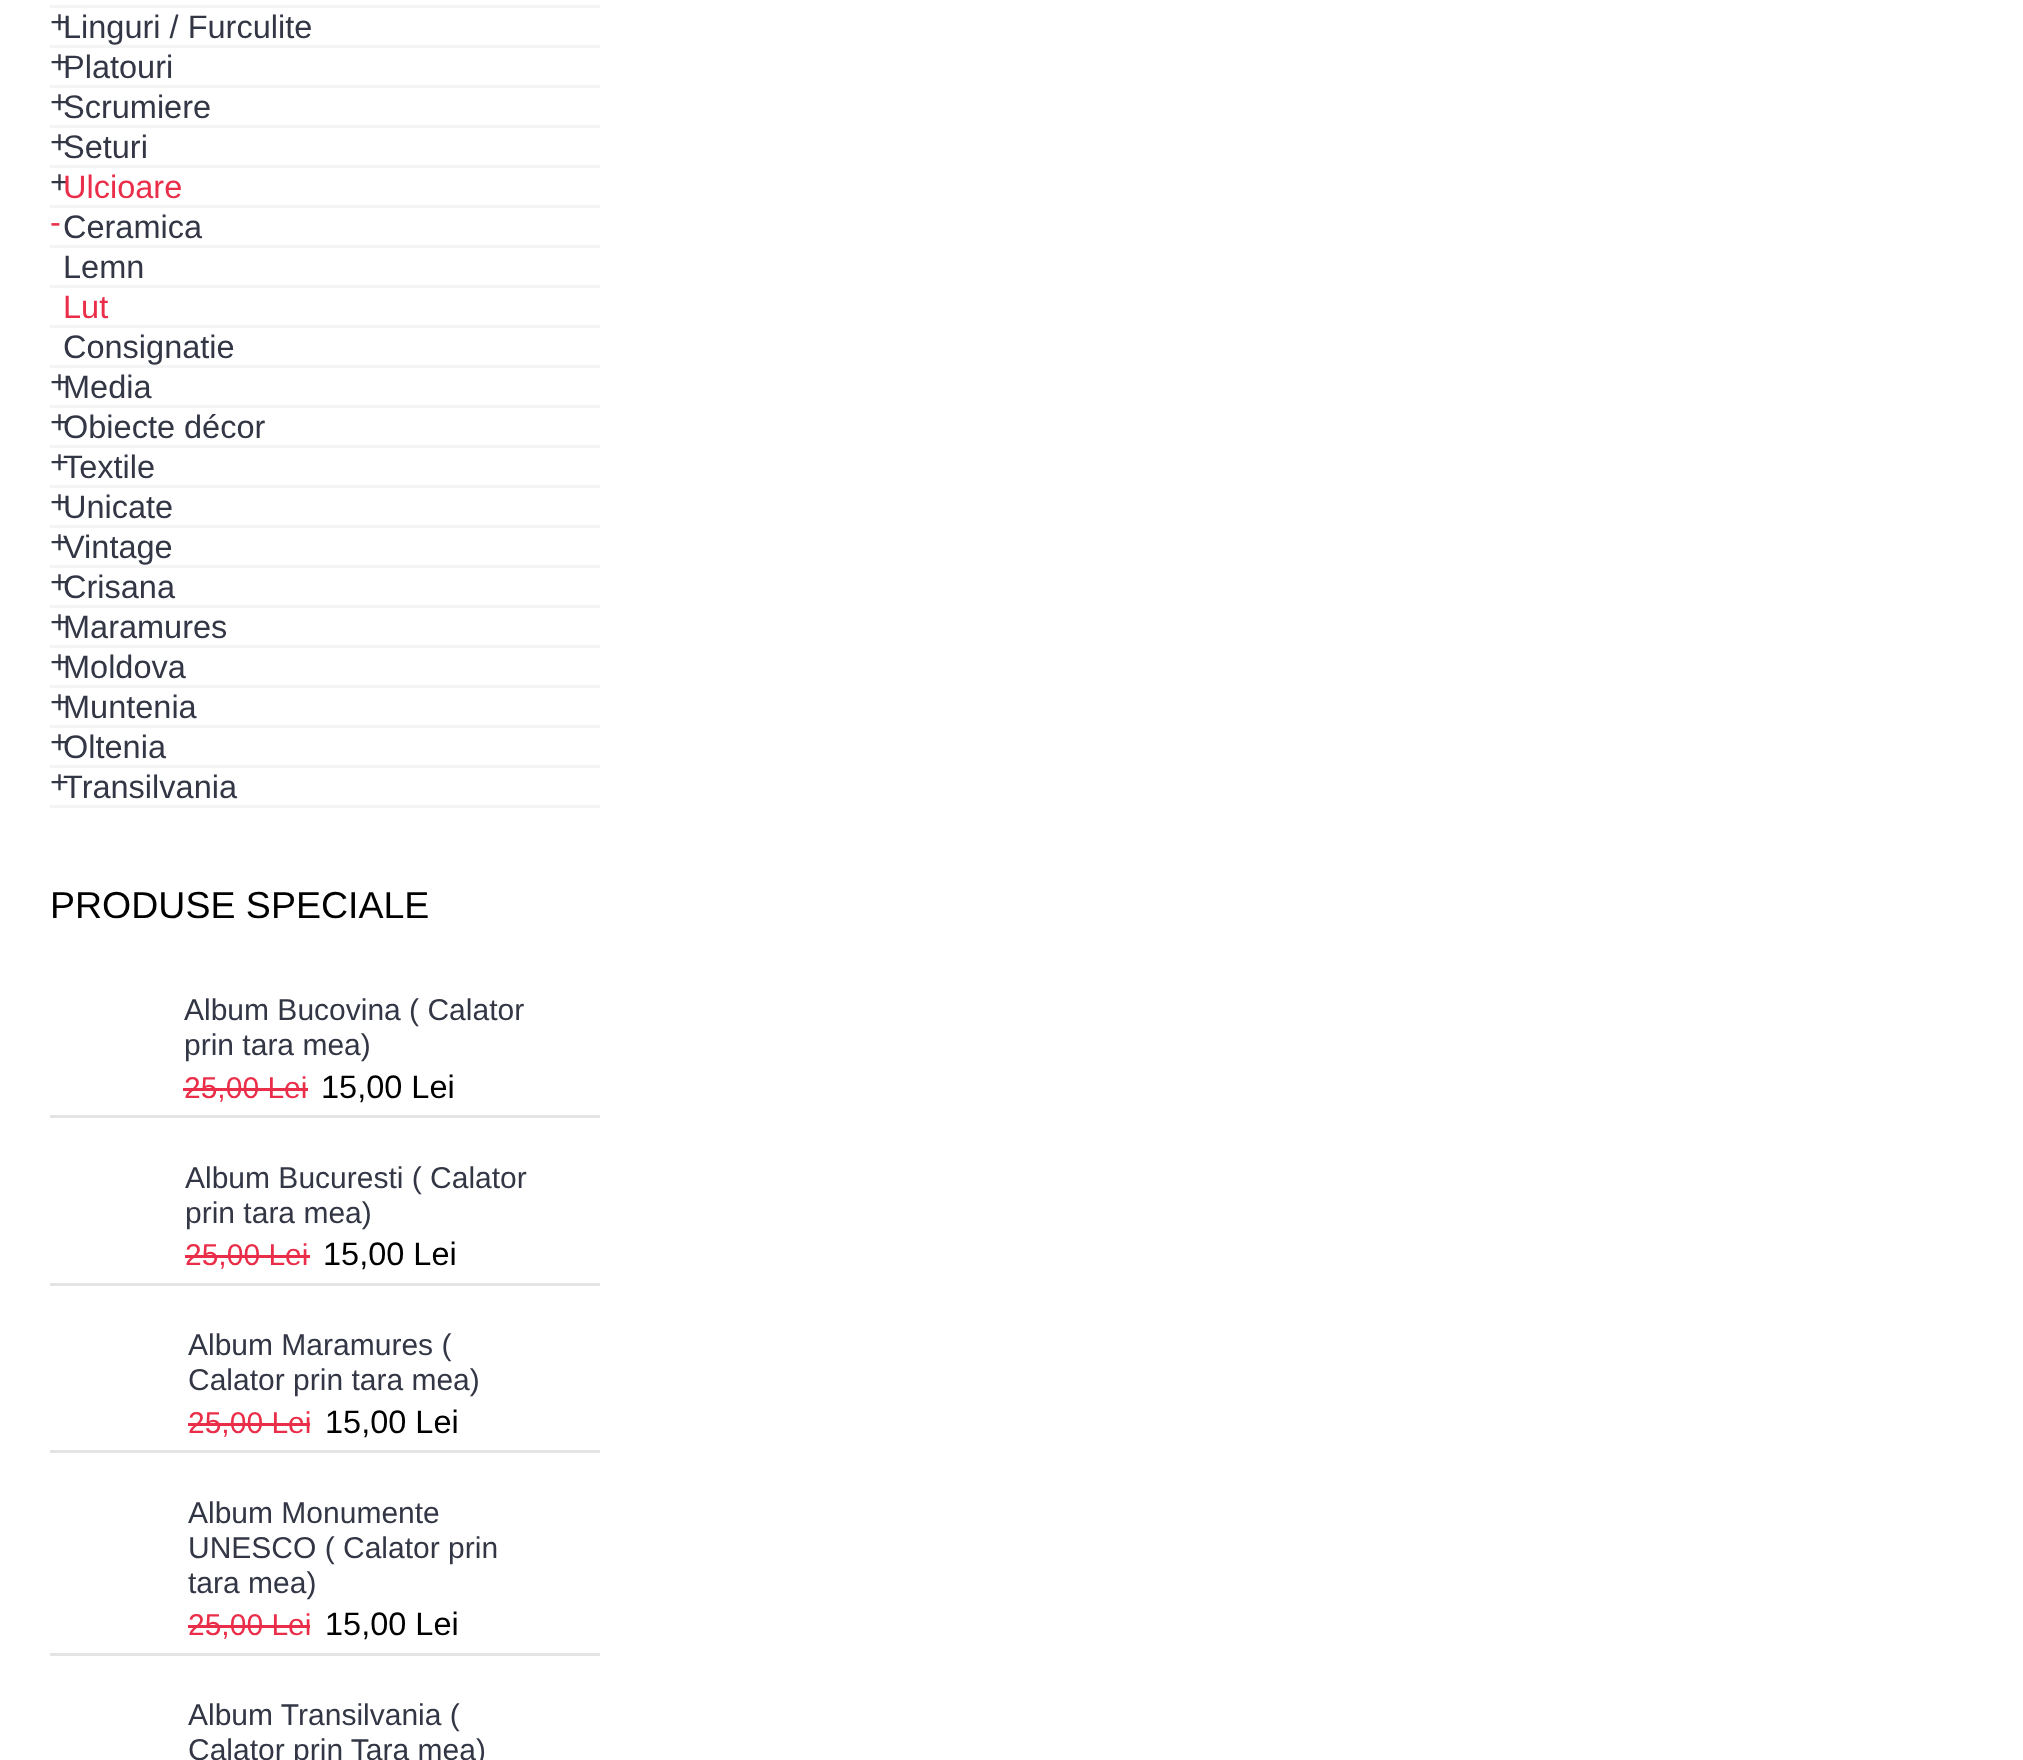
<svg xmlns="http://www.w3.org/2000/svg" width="2023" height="1760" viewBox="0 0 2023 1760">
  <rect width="100%" height="100%" fill="#ffffff"/>
  <rect x="50" y="5" width="550" height="3" fill="#f4f4f4"/>
  <text x="50" y="33" font-family="Liberation Sans" font-size="32.5" fill="#333745">+</text>
  <rect x="50" y="45" width="550" height="3" fill="#f4f4f4"/>
  <text x="63" y="38" font-family="Liberation Sans" font-size="32.5" fill="#333745">Linguri / Furculite</text>
  <text x="50" y="73" font-family="Liberation Sans" font-size="32.5" fill="#333745">+</text>
  <rect x="50" y="85" width="550" height="3" fill="#f4f4f4"/>
  <text x="63" y="78" font-family="Liberation Sans" font-size="32.5" fill="#333745">Platouri</text>
  <text x="50" y="113" font-family="Liberation Sans" font-size="32.5" fill="#333745">+</text>
  <rect x="50" y="125" width="550" height="3" fill="#f4f4f4"/>
  <text x="63" y="118" font-family="Liberation Sans" font-size="32.5" fill="#333745">Scrumiere</text>
  <text x="50" y="153" font-family="Liberation Sans" font-size="32.5" fill="#333745">+</text>
  <rect x="50" y="165" width="550" height="3" fill="#f4f4f4"/>
  <text x="63" y="158" font-family="Liberation Sans" font-size="32.5" fill="#333745">Seturi</text>
  <text x="50" y="193" font-family="Liberation Sans" font-size="32.5" fill="#333745">+</text>
  <rect x="50" y="205" width="550" height="3" fill="#f4f4f4"/>
  <text x="63" y="198" font-family="Liberation Sans" font-size="32.5" fill="#ea2e49">Ulcioare</text>
  <text x="50" y="233" font-family="Liberation Sans" font-size="32.5" fill="#ea2e49">-</text>
  <rect x="50" y="245" width="550" height="3" fill="#f4f4f4"/>
  <text x="63" y="238" font-family="Liberation Sans" font-size="32.5" fill="#333745">Ceramica</text>
  <rect x="50" y="285" width="550" height="3" fill="#f4f4f4"/>
  <text x="63" y="278" font-family="Liberation Sans" font-size="32.5" fill="#333745">Lemn</text>
  <rect x="50" y="325" width="550" height="3" fill="#f4f4f4"/>
  <text x="63" y="318" font-family="Liberation Sans" font-size="32.5" fill="#ea2e49">Lut</text>
  <rect x="50" y="365" width="550" height="3" fill="#f4f4f4"/>
  <text x="63" y="358" font-family="Liberation Sans" font-size="32.5" fill="#333745">Consignatie</text>
  <text x="50" y="393" font-family="Liberation Sans" font-size="32.5" fill="#333745">+</text>
  <rect x="50" y="405" width="550" height="3" fill="#f4f4f4"/>
  <text x="63" y="398" font-family="Liberation Sans" font-size="32.5" fill="#333745">Media</text>
  <text x="50" y="433" font-family="Liberation Sans" font-size="32.5" fill="#333745">+</text>
  <rect x="50" y="445" width="550" height="3" fill="#f4f4f4"/>
  <text x="63" y="438" font-family="Liberation Sans" font-size="32.5" fill="#333745">Obiecte décor</text>
  <text x="50" y="473" font-family="Liberation Sans" font-size="32.5" fill="#333745">+</text>
  <rect x="50" y="485" width="550" height="3" fill="#f4f4f4"/>
  <text x="63" y="478" font-family="Liberation Sans" font-size="32.5" fill="#333745">Textile</text>
  <text x="50" y="513" font-family="Liberation Sans" font-size="32.5" fill="#333745">+</text>
  <rect x="50" y="525" width="550" height="3" fill="#f4f4f4"/>
  <text x="63" y="518" font-family="Liberation Sans" font-size="32.5" fill="#333745">Unicate</text>
  <text x="50" y="553" font-family="Liberation Sans" font-size="32.5" fill="#333745">+</text>
  <rect x="50" y="565" width="550" height="3" fill="#f4f4f4"/>
  <text x="63" y="558" font-family="Liberation Sans" font-size="32.5" fill="#333745">Vintage</text>
  <text x="50" y="593" font-family="Liberation Sans" font-size="32.5" fill="#333745">+</text>
  <rect x="50" y="605" width="550" height="3" fill="#f4f4f4"/>
  <text x="63" y="598" font-family="Liberation Sans" font-size="32.5" fill="#333745">Crisana</text>
  <text x="50" y="633" font-family="Liberation Sans" font-size="32.5" fill="#333745">+</text>
  <rect x="50" y="645" width="550" height="3" fill="#f4f4f4"/>
  <text x="63" y="638" font-family="Liberation Sans" font-size="32.5" fill="#333745">Maramures</text>
  <text x="50" y="673" font-family="Liberation Sans" font-size="32.5" fill="#333745">+</text>
  <rect x="50" y="685" width="550" height="3" fill="#f4f4f4"/>
  <text x="63" y="678" font-family="Liberation Sans" font-size="32.5" fill="#333745">Moldova</text>
  <text x="50" y="713" font-family="Liberation Sans" font-size="32.5" fill="#333745">+</text>
  <rect x="50" y="725" width="550" height="3" fill="#f4f4f4"/>
  <text x="63" y="718" font-family="Liberation Sans" font-size="32.5" fill="#333745">Muntenia</text>
  <text x="50" y="753" font-family="Liberation Sans" font-size="32.5" fill="#333745">+</text>
  <rect x="50" y="765" width="550" height="3" fill="#f4f4f4"/>
  <text x="63" y="758" font-family="Liberation Sans" font-size="32.5" fill="#333745">Oltenia</text>
  <text x="50" y="793" font-family="Liberation Sans" font-size="32.5" fill="#333745">+</text>
  <rect x="50" y="805" width="550" height="3" fill="#f4f4f4"/>
  <text x="63" y="798" font-family="Liberation Sans" font-size="32.5" fill="#333745">Transilvania</text>
  <text x="50" y="918" font-family="Liberation Sans" font-size="37.5" fill="#000000">PRODUSE SPECIALE</text>
  <rect x="50" y="1115" width="550" height="3" fill="#e4e4e4"/>
  <text x="184" y="1020" font-family="Liberation Sans" font-size="30" fill="#333745">Album Bucovina ( Calator</text>
  <text x="184" y="1055" font-family="Liberation Sans" font-size="30" fill="#333745">prin tara mea)</text>
  <text x="184" y="1098" font-family="Liberation Sans" font-size="30" fill="#ea2e49">25,00 Lei</text>
  <rect x="183" y="1088" width="125" height="3" fill="#ea2e49"/>
  <text x="321" y="1098" font-family="Liberation Sans" font-size="32.5" fill="#000000">15,00 Lei</text>
  <rect x="50" y="1283" width="550" height="3" fill="#e4e4e4"/>
  <text x="185" y="1188" font-family="Liberation Sans" font-size="30" fill="#333745">Album Bucuresti ( Calator</text>
  <text x="185" y="1223" font-family="Liberation Sans" font-size="30" fill="#333745">prin tara mea)</text>
  <text x="185" y="1265" font-family="Liberation Sans" font-size="30" fill="#ea2e49">25,00 Lei</text>
  <rect x="185" y="1255" width="125" height="3" fill="#ea2e49"/>
  <text x="323" y="1265" font-family="Liberation Sans" font-size="32.5" fill="#000000">15,00 Lei</text>
  <rect x="50" y="1450" width="550" height="3" fill="#e4e4e4"/>
  <text x="188" y="1355" font-family="Liberation Sans" font-size="30" fill="#333745">Album Maramures (</text>
  <text x="188" y="1390" font-family="Liberation Sans" font-size="30" fill="#333745">Calator prin tara mea)</text>
  <text x="188" y="1433" font-family="Liberation Sans" font-size="30" fill="#ea2e49">25,00 Lei</text>
  <rect x="188" y="1423" width="122" height="3" fill="#ea2e49"/>
  <text x="325" y="1433" font-family="Liberation Sans" font-size="32.5" fill="#000000">15,00 Lei</text>
  <rect x="50" y="1653" width="550" height="3" fill="#e4e4e4"/>
  <text x="188" y="1523" font-family="Liberation Sans" font-size="30" fill="#333745">Album Monumente</text>
  <text x="188" y="1558" font-family="Liberation Sans" font-size="30" fill="#333745">UNESCO ( Calator prin</text>
  <text x="188" y="1593" font-family="Liberation Sans" font-size="30" fill="#333745">tara mea)</text>
  <text x="188" y="1635" font-family="Liberation Sans" font-size="30" fill="#ea2e49">25,00 Lei</text>
  <rect x="188" y="1625" width="122" height="3" fill="#ea2e49"/>
  <text x="325" y="1635" font-family="Liberation Sans" font-size="32.5" fill="#000000">15,00 Lei</text>
  <text x="188" y="1725" font-family="Liberation Sans" font-size="30" fill="#333745">Album Transilvania (</text>
  <text x="188" y="1760" font-family="Liberation Sans" font-size="30" fill="#333745">Calator prin Tara mea)</text>
</svg>
